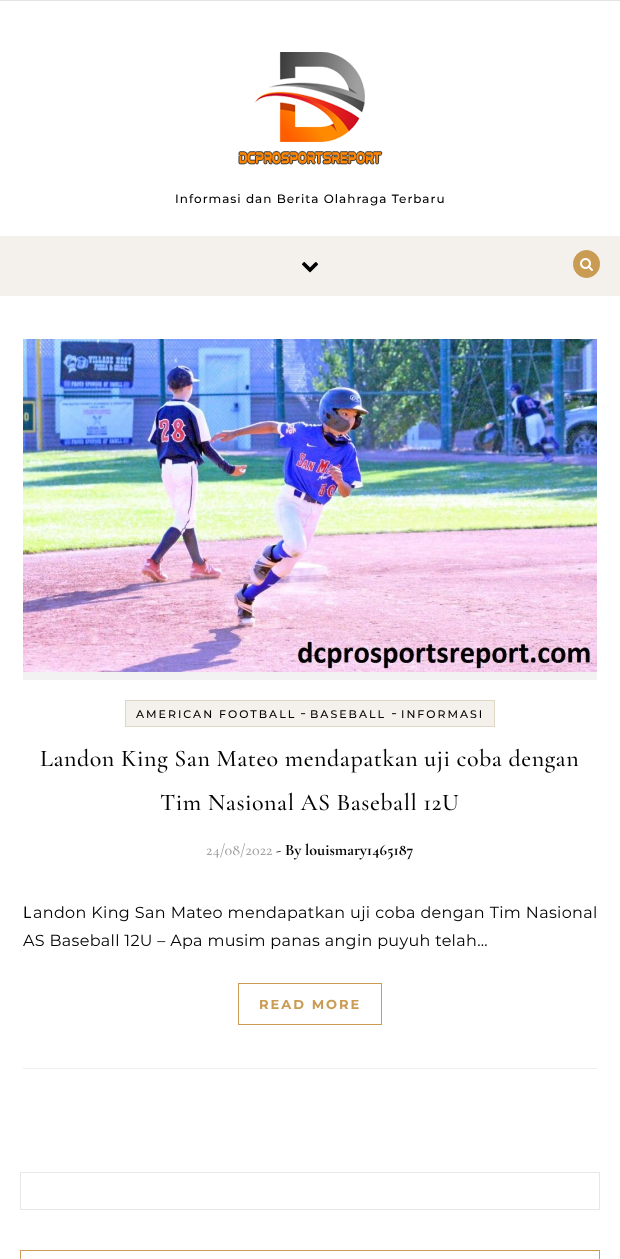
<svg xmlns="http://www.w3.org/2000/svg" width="620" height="1259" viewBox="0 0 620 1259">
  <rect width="100%" height="100%" fill="#ffffff"/>
  <rect x="0" y="0" width="620" height="1" fill="#e4e4e4"/>
  <image x="238" y="52" width="145" height="113" href="img1.png"/>
  <text x="175" y="203" font-family="'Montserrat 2'" font-size="12" font-weight="100" letter-spacing="1" fill="#030303">Informasi dan Berita Olahraga Terbaru</text>
  <rect x="0" y="236" width="620" height="60" fill="#f4f1ec"/>
  <image x="301" y="262" width="18" height="11" href="img2.png"/>
  <rect x="573.5" y="250.5" width="26" height="27" rx="13" fill="#ca9b52" stroke="#ca9b52"/>
  <image x="580" y="258" width="13" height="13" href="img3.png"/>
  <rect x="23" y="1068" width="574" height="1" fill="#eeeeee"/>
  <rect x="23" y="672" width="574" height="8" fill="#f2f2f2"/>
  <image x="23" y="339" width="574" height="333" href="img4.png"/>
  <rect x="125.5" y="700.5" width="369" height="26" fill="#f4f1ec" stroke="#dfd6c5"/>
  <text x="136" y="718" font-family="'Montserrat 2'" font-size="11" font-weight="100" letter-spacing="2" fill="#030303">AMERICAN FOOTBALL</text>
  <text x="300" y="718" font-family="Montserrat" font-size="16" font-weight="100" fill="#030303">-</text>
  <text x="310" y="718" font-family="'Montserrat 2'" font-size="11" font-weight="100" letter-spacing="2" fill="#030303">BASEBALL</text>
  <text x="391" y="718" font-family="Montserrat" font-size="16" font-weight="100" fill="#030303">-</text>
  <text x="401" y="718" font-family="'Montserrat 2'" font-size="11" font-weight="100" letter-spacing="2" fill="#030303">INFORMASI</text>
  <text x="40" y="766" font-family="Cormorant Garamond" font-size="24" font-weight="500" letter-spacing="0.5" fill="#030303">Landon King San Mateo mendapatkan uji coba dengan</text>
  <text x="160" y="810" font-family="Cormorant Garamond" font-size="24" font-weight="500" letter-spacing="0.5" fill="#030303">Tim Nasional AS Baseball 12U</text>
  <text x="206" y="855" font-family="Cormorant Garamond" font-size="16" font-weight="500" fill="#a1a1a1">24/08/2022</text>
  <text x="276" y="855" font-family="Cormorant Garamond" font-size="16" font-weight="bold" fill="#030303">- By louismary1465187</text>
  <text x="23" y="918" font-family="Noto Sans" font-size="16" letter-spacing="0.32" fill="#030303">L</text>
  <text x="33" y="918" word-spacing="0.25" font-family="Montserrat" font-size="16" font-weight="100" letter-spacing="0.32" fill="#030303">andon King San Mateo mendapatkan uji coba dengan Tim Nasional</text>
  <text x="23" y="946" font-family="Montserrat" font-size="16" font-weight="100" letter-spacing="0.32" fill="#030303">AS Baseball 12U – Apa musim panas angin puyuh telah…</text>
  <rect x="238.5" y="983.5" width="143" height="41" fill="none" stroke="#ca9b52"/>
  <text x="259" y="1009" font-family="'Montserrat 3'" font-size="13" font-weight="100" letter-spacing="2" fill="#ca9b52">READ MORE</text>
  <rect x="20.5" y="1172.5" width="579" height="37" fill="none" stroke="#e8e8e8"/>
  <rect x="20.5" y="1250.5" width="579" height="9" fill="none" stroke="#ca9b52"/>
</svg>
